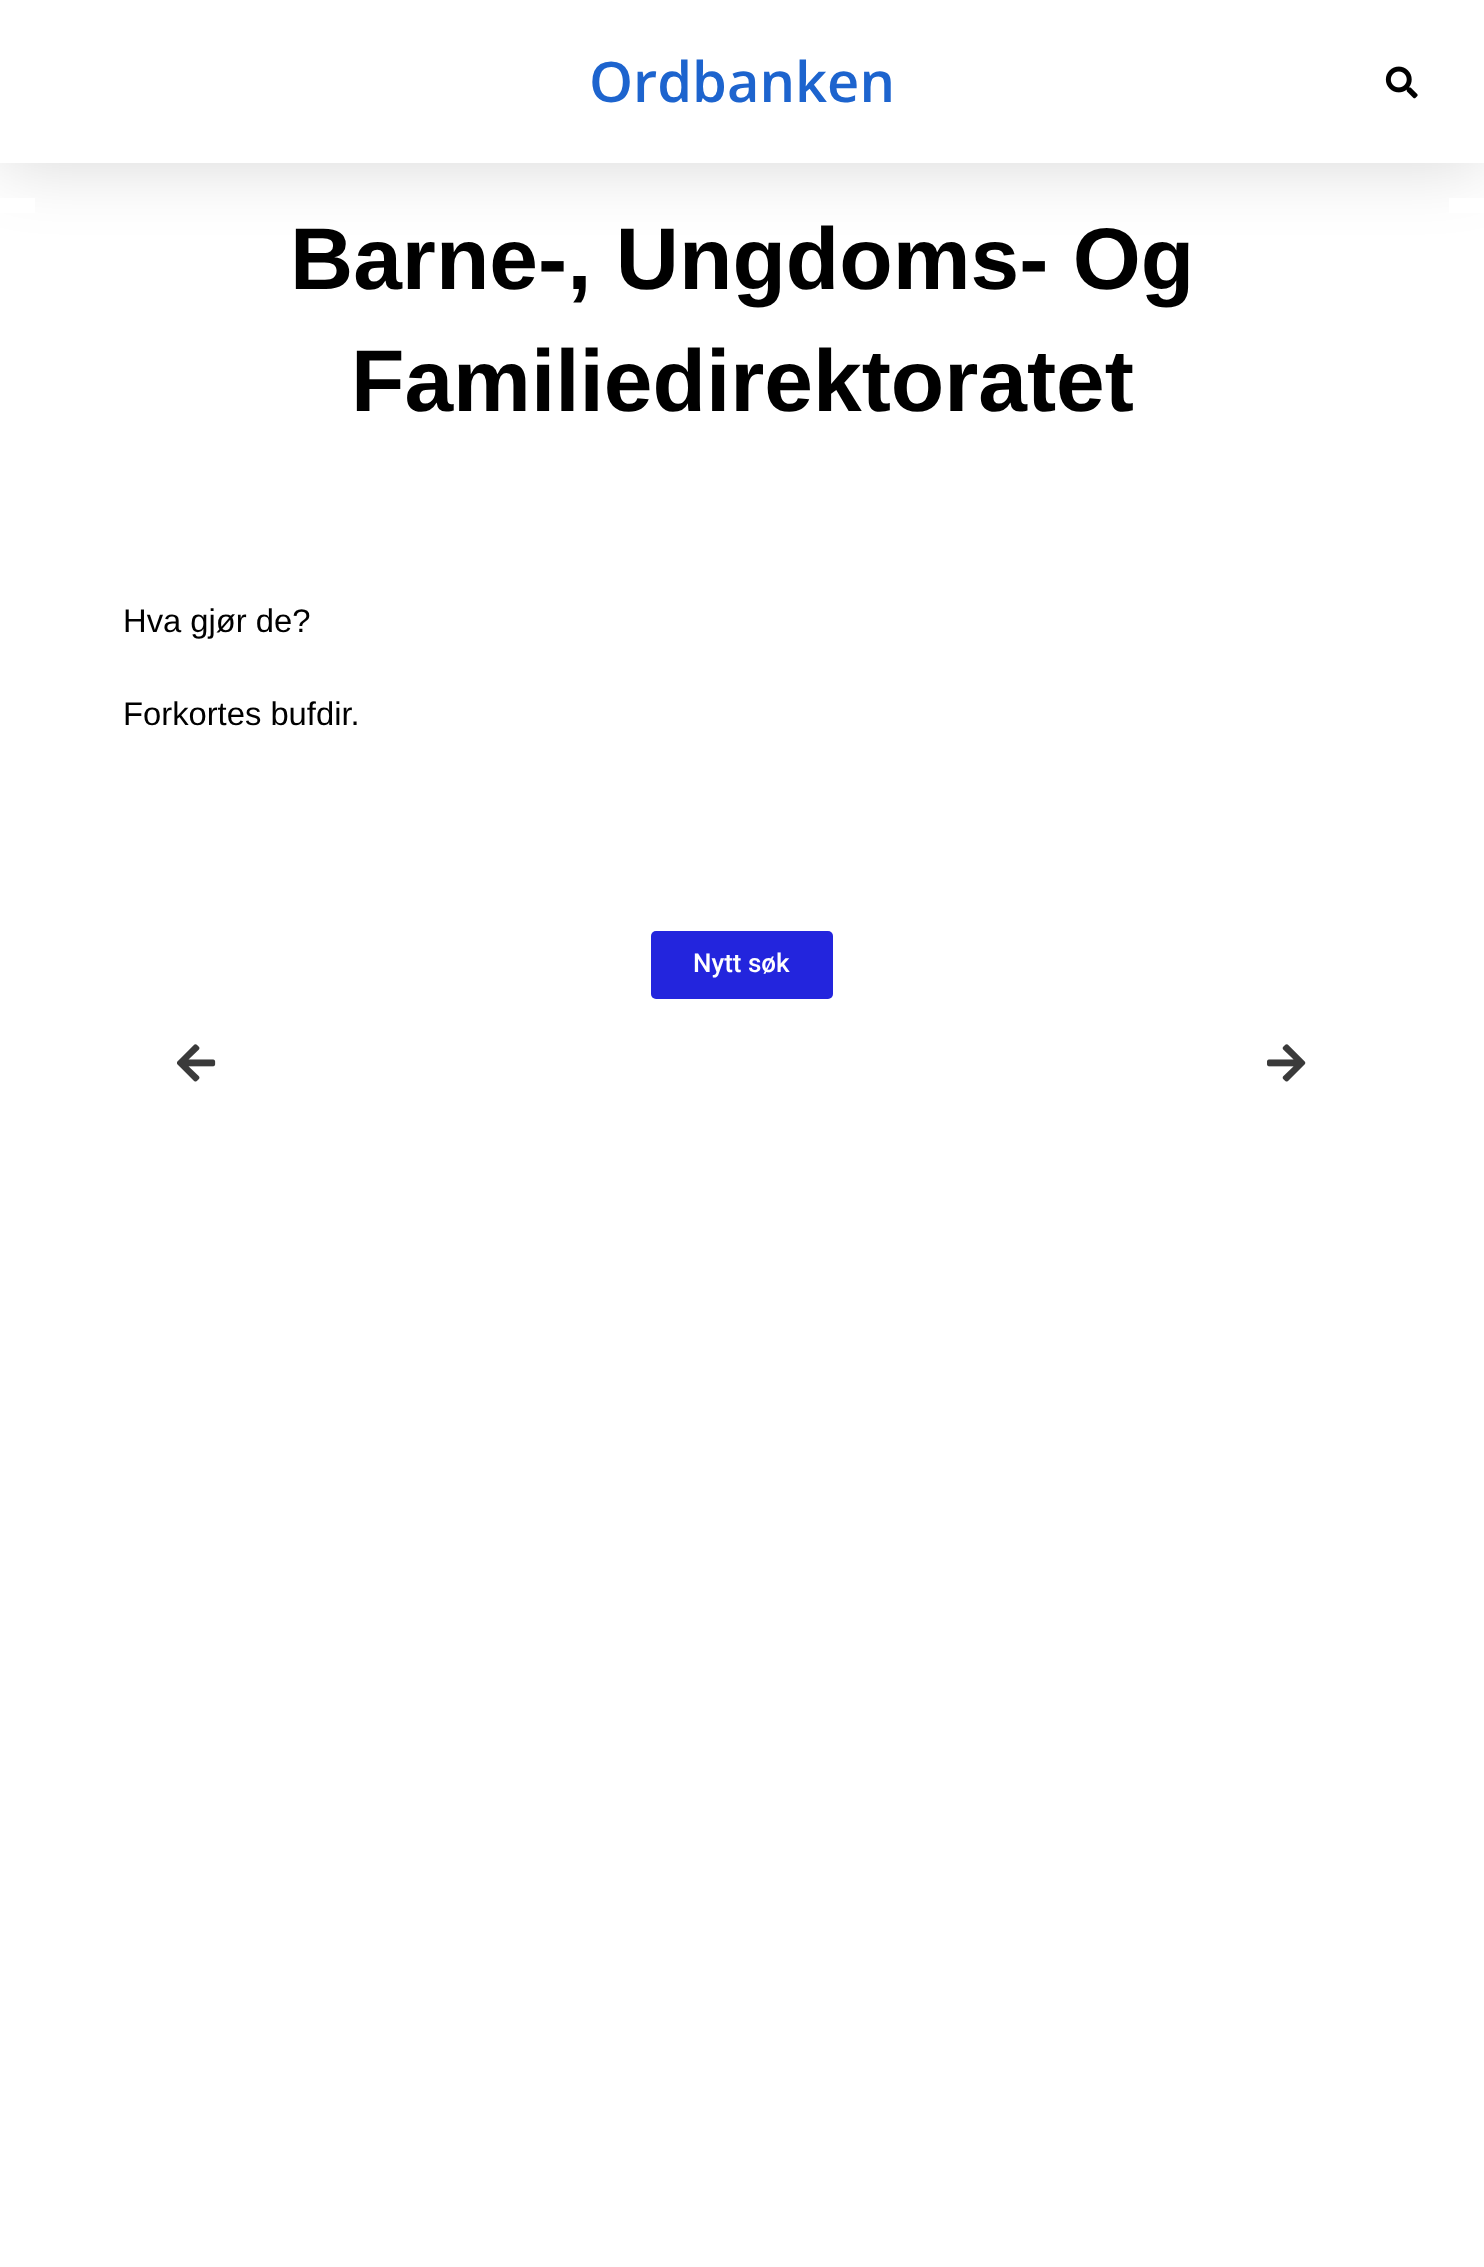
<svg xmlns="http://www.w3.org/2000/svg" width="1484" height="2267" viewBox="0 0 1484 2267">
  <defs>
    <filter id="blur1" x="-50%" y="-200%" width="200%" height="500%"><feGaussianBlur stdDeviation="35"/></filter>
  </defs>
  <rect width="100%" height="100%" fill="#ffffff"/>
  <rect x="0" y="0" width="1484" height="163" fill="#000000" fill-opacity="0.16" filter="url(#blur1)"/>
  <rect x="0" y="0" width="1484" height="163" fill="#ffffff"/>
  <text x="589" y="102" font-family="Open Sans" font-size="56" font-weight="600" fill="#1d64ce">Ordbanken</text>
  <image x="1385" y="66" width="33" height="33" href="img1.png"/>
  <rect x="1449" y="198" width="35" height="15" fill="#ffffff"/>
  <rect x="0" y="198" width="35" height="15" fill="#ffffff"/>
  <text x="290" y="289" font-family="Liberation Sans" font-size="87.5" font-weight="bold" fill="#000000">Barne-, Ungdoms- Og</text>
  <text x="351" y="411" font-family="Liberation Sans" font-size="87.5" font-weight="bold" fill="#000000">Familiedirektoratet</text>
  <text x="123" y="632" font-family="Liberation Sans" font-size="32.75" fill="#000000">Hva gjør de?</text>
  <text x="123" y="725" font-family="Liberation Sans" font-size="32.75" fill="#000000">Forkortes bufdir.</text>
  <rect x="651" y="931" width="182" height="68" rx="5" fill="#2325dd"/>
  <text x="693" y="972" font-family="Roboto" font-size="26" font-weight="500" fill="#ffffff">Nytt søk</text>
  <image x="177" y="1044" width="39" height="38" href="img2.png"/>
  <image x="1267" y="1044" width="39" height="38" href="img3.png"/>
</svg>
